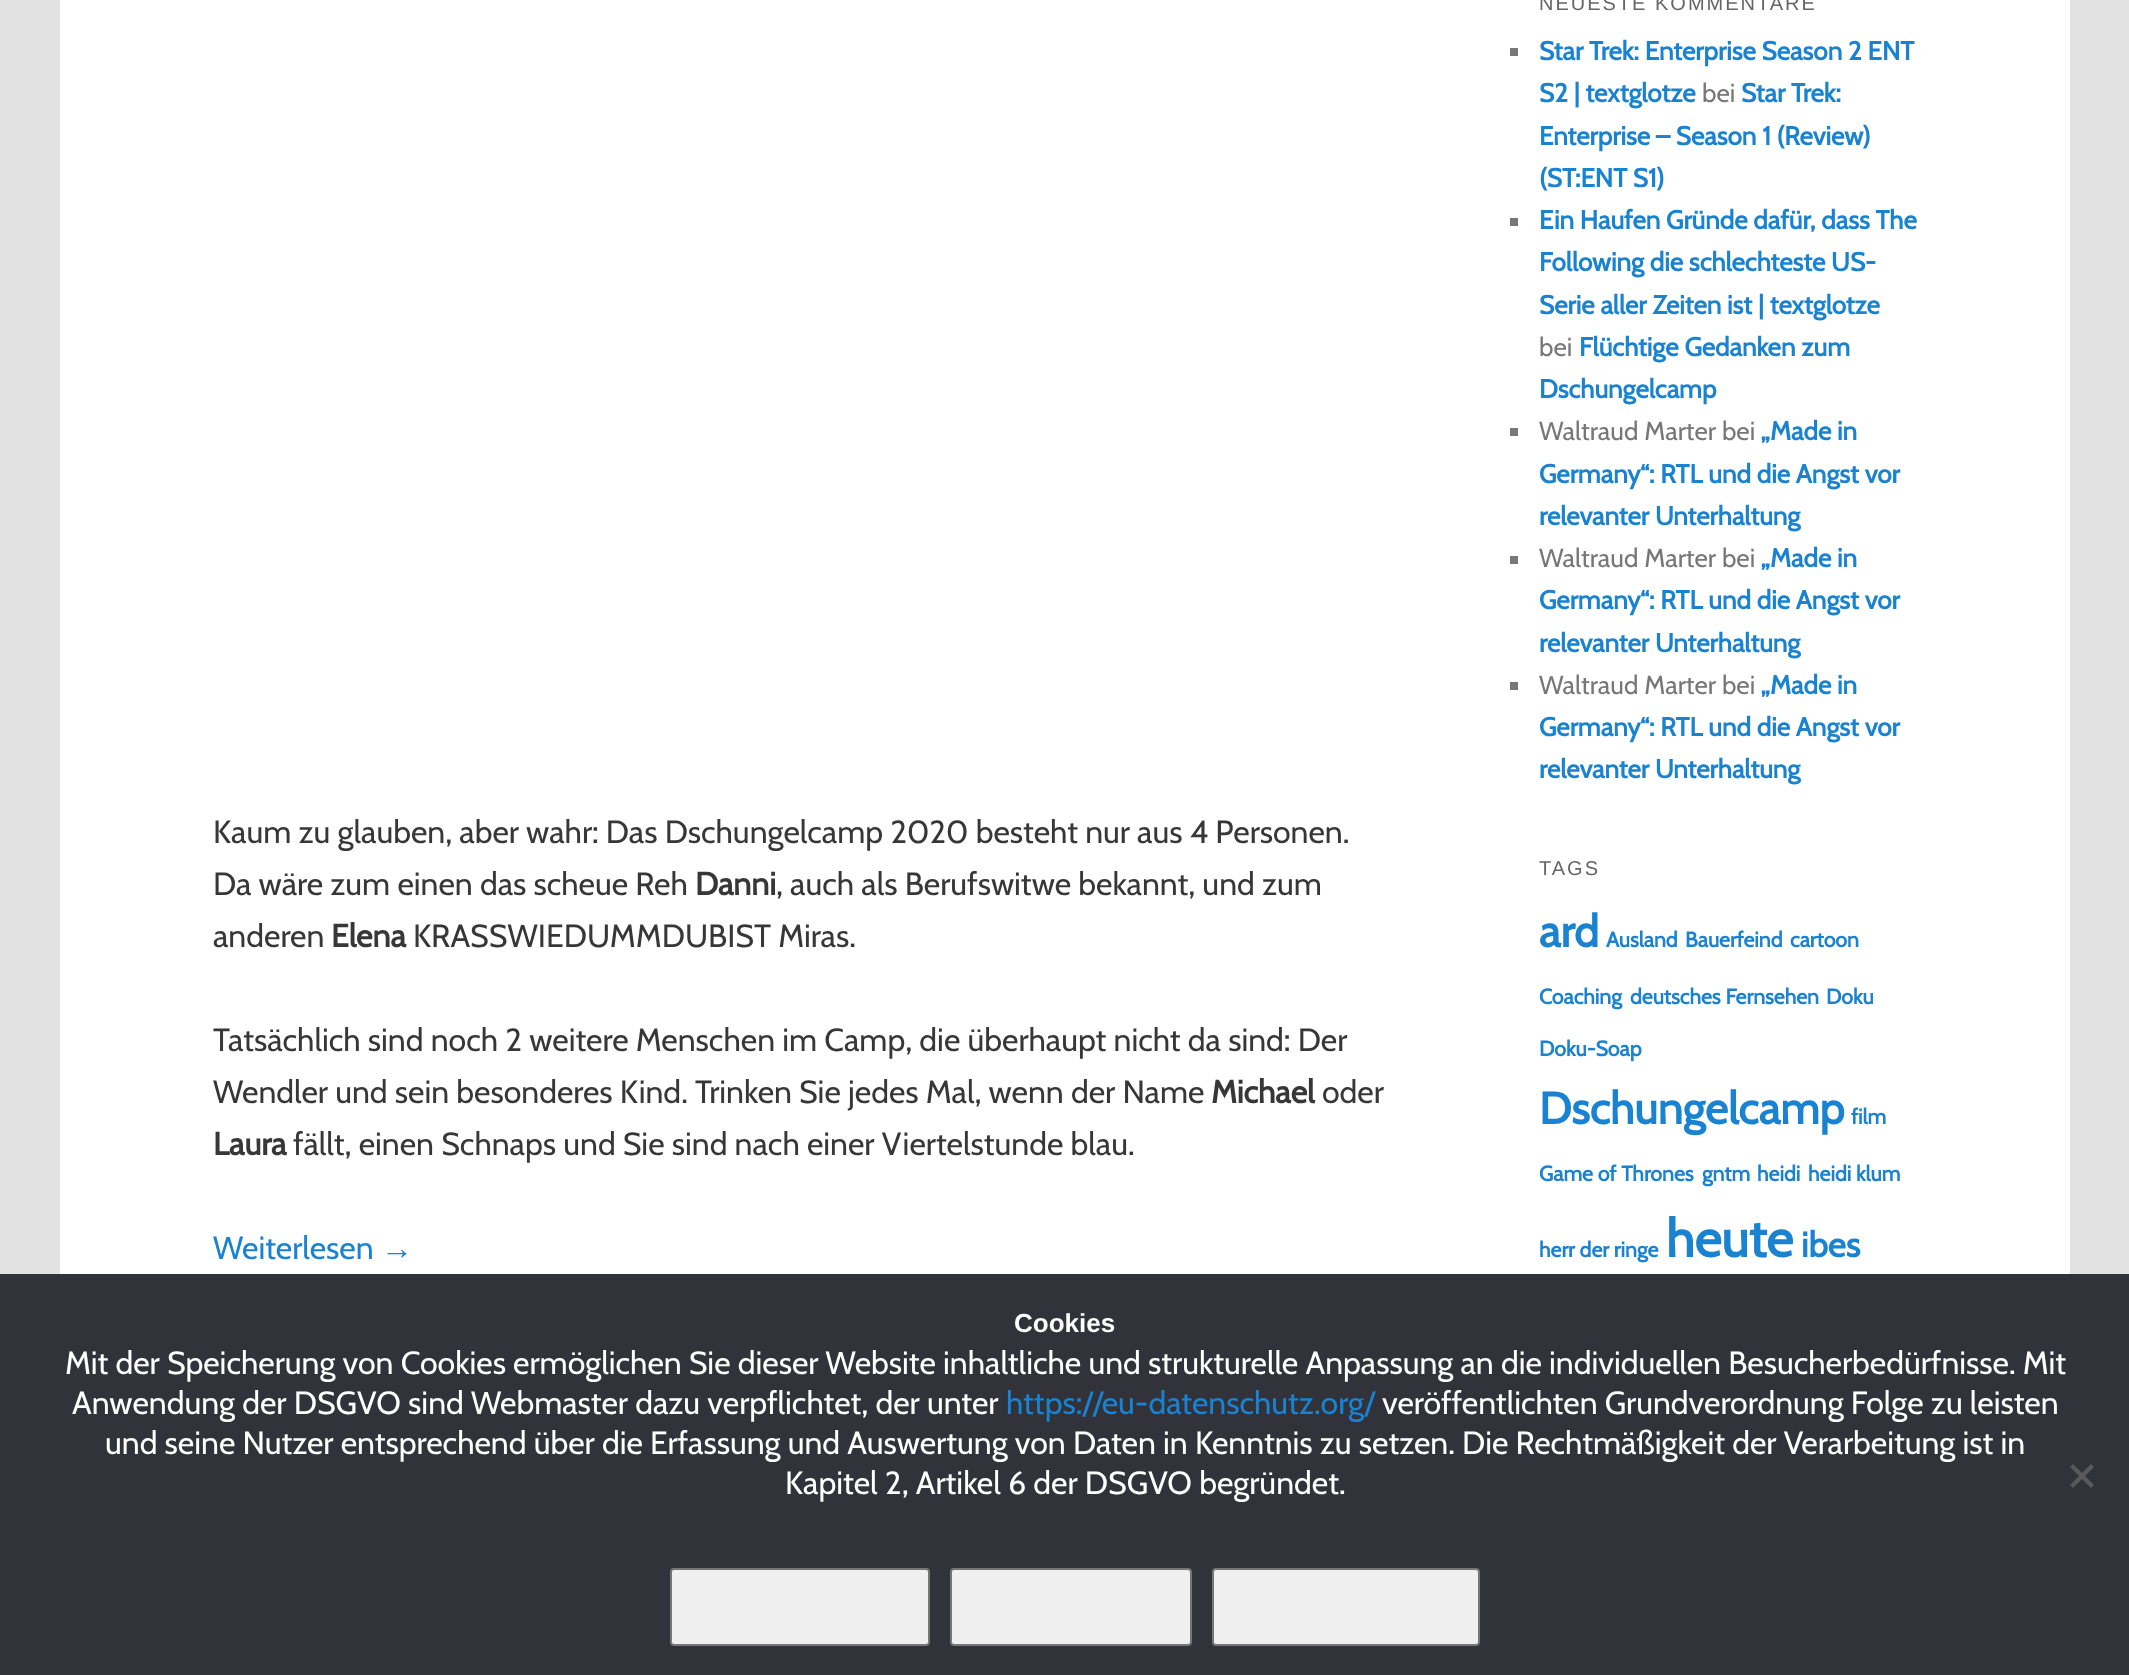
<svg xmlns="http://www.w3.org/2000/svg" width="2129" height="1675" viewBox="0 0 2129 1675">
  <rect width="100%" height="100%" fill="#e2e2e2"/>
  <rect x="60" y="0" width="2010" height="1274" fill="#ffffff"/>
  <text x="213" y="843" font-family="Cabin" font-size="32" fill="#373737">Kaum zu glauben, aber wahr: Das Dschungelcamp 2020 besteht nur aus 4 Personen.</text>
  <text x="213" y="895" font-family="Cabin" font-size="32" fill="#373737">Da wäre zum einen das scheue Reh</text>
  <text x="695" y="895" font-family="Cabin" font-size="32" font-weight="bold" fill="#373737">Danni</text>
  <text x="776" y="895" font-family="Cabin" font-size="32" fill="#373737">, auch als Berufswitwe bekannt, und zum</text>
  <text x="213" y="947" font-family="Cabin" font-size="32" fill="#373737">anderen</text>
  <text x="331" y="947" font-family="Cabin" font-size="32" font-weight="bold" fill="#373737">Elena</text>
  <text x="413" y="947" font-family="Cabin" font-size="32" fill="#373737">KRASSWIEDUMMDUBIST Miras.</text>
  <text x="213" y="1051" font-family="Cabin" font-size="32" fill="#373737">Tatsächlich sind noch 2 weitere Menschen im Camp, die überhaupt nicht da sind: Der</text>
  <text x="213" y="1103" font-family="Cabin" font-size="32" fill="#373737">Wendler und sein besonderes Kind. Trinken Sie jedes Mal, wenn der Name</text>
  <text x="1211" y="1103" font-family="Cabin" font-size="32" font-weight="bold" fill="#373737">Michael</text>
  <text x="1322" y="1103" font-family="Cabin" font-size="32" fill="#373737">oder</text>
  <text x="213" y="1155" font-family="Cabin" font-size="32" font-weight="bold" fill="#373737">Laura</text>
  <text x="293" y="1155" font-family="Cabin" font-size="32" fill="#373737">fällt, einen Schnaps und Sie sind nach einer Viertelstunde blau.</text>
  <text x="213" y="1259" font-family="Cabin" font-size="32" fill="#1982d1">Weiterlesen</text>
  <text x="381" y="1259" font-family="Liberation Sans" font-size="32" fill="#1982d1">→</text>
  <text x="1539" y="10" font-family="Liberation Sans" font-size="20" letter-spacing="2" fill="#666666">NEUESTE KOMMENTARE</text>
  <rect x="1510" y="48" width="8" height="8" fill="#777777"/>
  <text x="1539" y="60" font-family="Cabin" font-size="26" font-weight="bold" fill="#1982d1">Star Trek: Enterprise Season 2 ENT</text>
  <text x="1539" y="102" font-family="Cabin" font-size="26" font-weight="bold" fill="#1982d1">S2 | textglotze</text>
  <text x="1702" y="102" font-family="Cabin" font-size="26" fill="#777777">bei</text>
  <text x="1741" y="102" font-family="Cabin" font-size="26" font-weight="bold" fill="#1982d1">Star Trek:</text>
  <text x="1539" y="145" font-family="Cabin" font-size="26" font-weight="bold" fill="#1982d1">Enterprise – Season 1 (Review)</text>
  <text x="1539" y="187" font-family="Cabin" font-size="26" font-weight="bold" fill="#1982d1">(ST:ENT S1)</text>
  <rect x="1510" y="218" width="8" height="8" fill="#777777"/>
  <text x="1539" y="229" font-family="Cabin" font-size="26" font-weight="bold" fill="#1982d1">Ein Haufen Gründe dafür, dass The</text>
  <text x="1539" y="271" font-family="Cabin" font-size="26" font-weight="bold" fill="#1982d1">Following die schlechteste US-</text>
  <text x="1539" y="314" font-family="Cabin" font-size="26" font-weight="bold" fill="#1982d1">Serie aller Zeiten ist | textglotze</text>
  <text x="1539" y="356" font-family="Cabin" font-size="26" fill="#777777">bei</text>
  <text x="1579" y="356" font-family="Cabin" font-size="26" font-weight="bold" fill="#1982d1">Flüchtige Gedanken zum</text>
  <text x="1539" y="398" font-family="Cabin" font-size="26" font-weight="bold" fill="#1982d1">Dschungelcamp</text>
  <rect x="1510" y="428" width="8" height="8" fill="#777777"/>
  <text x="1539" y="440" font-family="Cabin" font-size="26" fill="#777777">Waltraud Marter bei</text>
  <text x="1761" y="440" font-family="Cabin" font-size="26" font-weight="bold" fill="#1982d1">„Made in</text>
  <text x="1539" y="483" font-family="Cabin" font-size="26" font-weight="bold" fill="#1982d1">Germany“: RTL und die Angst vor</text>
  <text x="1539" y="525" font-family="Cabin" font-size="26" font-weight="bold" fill="#1982d1">relevanter Unterhaltung</text>
  <rect x="1510" y="556" width="8" height="8" fill="#777777"/>
  <text x="1539" y="567" font-family="Cabin" font-size="26" fill="#777777">Waltraud Marter bei</text>
  <text x="1761" y="567" font-family="Cabin" font-size="26" font-weight="bold" fill="#1982d1">„Made in</text>
  <text x="1539" y="609" font-family="Cabin" font-size="26" font-weight="bold" fill="#1982d1">Germany“: RTL und die Angst vor</text>
  <text x="1539" y="652" font-family="Cabin" font-size="26" font-weight="bold" fill="#1982d1">relevanter Unterhaltung</text>
  <rect x="1510" y="682" width="8" height="8" fill="#777777"/>
  <text x="1539" y="694" font-family="Cabin" font-size="26" fill="#777777">Waltraud Marter bei</text>
  <text x="1761" y="694" font-family="Cabin" font-size="26" font-weight="bold" fill="#1982d1">„Made in</text>
  <text x="1539" y="736" font-family="Cabin" font-size="26" font-weight="bold" fill="#1982d1">Germany“: RTL und die Angst vor</text>
  <text x="1539" y="778" font-family="Cabin" font-size="26" font-weight="bold" fill="#1982d1">relevanter Unterhaltung</text>
  <text x="1539" y="875" font-family="Liberation Sans" font-size="20" letter-spacing="2" fill="#666666">TAGS</text>
  <text x="1539" y="947" font-family="Cabin" font-size="44.75" font-weight="bold" fill="#1982d1">ard</text>
  <text x="1606" y="947" font-family="Cabin" font-size="21.25" font-weight="bold" fill="#1982d1">Ausland</text>
  <text x="1685" y="947" font-family="Cabin" font-size="21.25" font-weight="bold" fill="#1982d1">Bauerfeind</text>
  <text x="1790" y="947" font-family="Cabin" font-size="21.25" font-weight="bold" fill="#1982d1">cartoon</text>
  <text x="1539" y="1004" font-family="Cabin" font-size="21.25" font-weight="bold" fill="#1982d1">Coaching</text>
  <text x="1630" y="1004" font-family="Cabin" font-size="21.25" font-weight="bold" fill="#1982d1">deutsches Fernsehen</text>
  <text x="1826" y="1004" font-family="Cabin" font-size="21.25" font-weight="bold" fill="#1982d1">Doku</text>
  <text x="1539" y="1056" font-family="Cabin" font-size="21.25" font-weight="bold" fill="#1982d1">Doku-Soap</text>
  <text x="1539" y="1124" font-family="Cabin" font-size="44.75" font-weight="bold" fill="#1982d1">Dschungelcamp</text>
  <text x="1851" y="1124" font-family="Cabin" font-size="21.25" font-weight="bold" fill="#1982d1">film</text>
  <text x="1539" y="1181" font-family="Cabin" font-size="21.25" font-weight="bold" fill="#1982d1">Game of Thrones</text>
  <text x="1702" y="1181" font-family="Cabin" font-size="21.25" font-weight="bold" fill="#1982d1">gntm</text>
  <text x="1757" y="1181" font-family="Cabin" font-size="21.25" font-weight="bold" fill="#1982d1">heidi</text>
  <text x="1808" y="1181" font-family="Cabin" font-size="21.25" font-weight="bold" fill="#1982d1">heidi klum</text>
  <text x="1539" y="1257" font-family="Cabin" font-size="21.25" font-weight="bold" fill="#1982d1">herr der ringe</text>
  <text x="1666" y="1257" font-family="Cabin" font-size="52.5" font-weight="bold" fill="#1982d1">heute</text>
  <text x="1801" y="1257" font-family="Cabin" font-size="35" font-weight="bold" fill="#1982d1">ibes</text>
  <rect x="0" y="1274" width="2129" height="401" fill="#32323a"/>
  <text x="1014" y="1332" font-family="Liberation Sans" font-size="26" font-weight="bold" fill="#ffffff">Cookies</text>
  <text x="65" y="1374" font-family="Cabin" font-size="32" fill="#ffffff">Mit der Speicherung von Cookies ermöglichen Sie dieser Website inhaltliche und strukturelle Anpassung an die individuellen Besucherbedürfnisse. Mit</text>
  <text x="72" y="1414" font-family="Cabin" font-size="32" fill="#ffffff">Anwendung der DSGVO sind Webmaster dazu verpflichtet, der unter</text>
  <text x="1006" y="1414" font-family="Cabin" font-size="32" fill="#1982d1">https://eu-datenschutz.org/</text>
  <text x="1382" y="1414" font-family="Cabin" font-size="32" fill="#ffffff">veröffentlichten Grundverordnung Folge zu leisten</text>
  <text x="105" y="1454" font-family="Cabin" font-size="32" fill="#ffffff">und seine Nutzer entsprechend über die Erfassung und Auswertung von Daten in Kenntnis zu setzen. Die Rechtmäßigkeit der Verarbeitung ist in</text>
  <text x="785" y="1494" font-family="Cabin" font-size="32" fill="#ffffff">Kapitel 2, Artikel 6 der DSGVO begründet.</text>
  <path d="M2091 1464L2094 1467L2073 1488L2070 1485Z" fill="#59595d"/>
  <path d="M2070 1467L2073 1464L2094 1485L2091 1488Z" fill="#59595d"/>
  <rect x="671" y="1569" width="258" height="76" rx="3" fill="#efefef" stroke="#767676" stroke-width="2"/>
  <rect x="951" y="1569" width="240" height="76" rx="3" fill="#efefef" stroke="#767676" stroke-width="2"/>
  <rect x="1213" y="1569" width="266" height="76" rx="3" fill="#efefef" stroke="#767676" stroke-width="2"/>
</svg>
